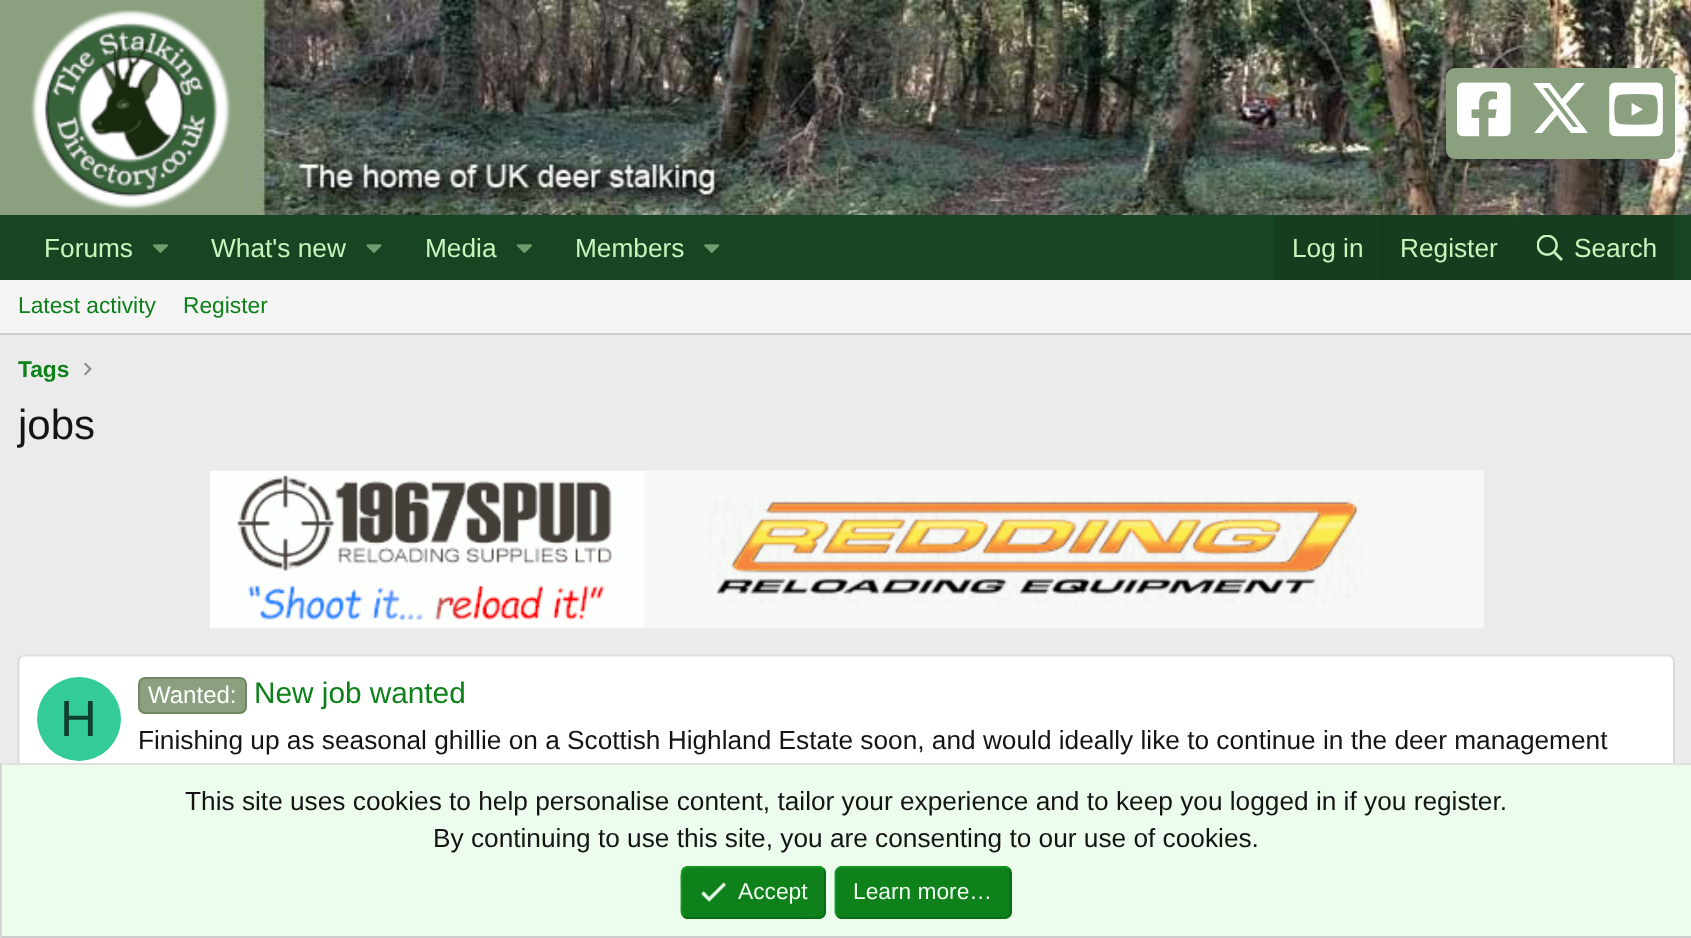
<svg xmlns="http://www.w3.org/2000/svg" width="1691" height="938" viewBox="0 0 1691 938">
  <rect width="100%" height="100%" fill="#ebebeb"/>
  <image x="0" y="0" width="1691" height="215" href="img1.png"/>
  <image x="30" y="10" width="202" height="201" href="img2.png"/>
  <rect x="1446" y="68" width="229" height="91" rx="9" fill="#8aa07e"/>
  <image x="1457" y="82" width="54" height="55" href="img3.png"/>
  <path d="M1576 83H1585L1566 104L1588 133H1571L1557 115L1542 133H1534L1554 110L1533 83H1550L1562 99ZM1573 127H1578L1548 88H1543Z" fill="#ffffff"/>
  <image x="1609" y="82" width="54" height="55" href="img4.png"/>
  <rect x="0" y="215" width="1691" height="65" fill="#174421"/>
  <text x="44" y="257" font-family="Liberation Sans" font-size="26.25" fill="#c8f5bc">Forums</text>
  <image x="152" y="244" width="16" height="9" href="img5.png"/>
  <text x="211" y="257" font-family="Liberation Sans" font-size="26.25" fill="#c8f5bc">What's new</text>
  <image x="366" y="244" width="16" height="9" href="img6.png"/>
  <text x="425" y="257" font-family="Liberation Sans" font-size="26.25" fill="#c8f5bc">Media</text>
  <image x="516" y="244" width="16" height="9" href="img5.png"/>
  <text x="575" y="257" font-family="Liberation Sans" font-size="26.25" fill="#c8f5bc">Members</text>
  <image x="704" y="244" width="15" height="9" href="img7.png"/>
  <path d="M1281 215H1509C1513 215 1516 218 1516 222V280H1274V222C1274 218 1277 215 1281 215Z" fill="#173d1f"/>
  <text x="1292" y="257" font-family="Liberation Sans" font-size="26.25" fill="#c8f5bc">Log in</text>
  <rect x="1381" y="215" width="2" height="65" fill="#17371d"/>
  <text x="1400" y="257" font-family="Liberation Sans" font-size="26.25" fill="#c8f5bc">Register</text>
  <path d="M1523 215H1668C1672 215 1675 218 1675 222V280H1516V222C1516 218 1519 215 1523 215Z" fill="#173d1f"/>
  <image x="1537" y="235" width="26" height="26" href="img8.png"/>
  <text x="1574" y="257" font-family="Liberation Sans" font-size="26.25" fill="#c8f5bc">Search</text>
  <rect x="0" y="280" width="1691" height="53" fill="#f5f5f5"/>
  <rect x="0" y="333" width="1691" height="2" fill="#cccccc"/>
  <text x="18" y="313" font-family="Liberation Sans" font-size="22.75" fill="#0e811b">Latest activity</text>
  <text x="183" y="313" font-family="Liberation Sans" font-size="22.75" fill="#0e811b">Register</text>
  <text x="18" y="377" font-family="Liberation Sans" font-size="22.75" font-weight="bold" fill="#0e811b">Tags</text>
  <image x="84" y="362" width="8" height="14" href="img9.png"/>
  <text x="18" y="439" font-family="Liberation Sans" font-size="42" fill="#141414">jobs</text>
  <image x="210" y="470" width="1274" height="159" href="img10.png"/>
  <rect x="18" y="655" width="1657" height="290" rx="7" fill="#ffffff"/>
  <path d="M20 657C21.5 656 23 655.5 24.5 655.5H1668C1669.5 655.5 1671 656 1672 657" fill="none" stroke="#e0e0e0" stroke-width="1.8"/>
  <path d="M1672 657C1673 658.5 1674 660 1674 661.5V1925C1674 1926.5 1673 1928 1672 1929.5" fill="none" stroke="#d6d6d6" stroke-width="1.8"/>
  <path d="M20 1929.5C19 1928 18.5 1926.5 18.5 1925V661.5C18.5 660 19 658.5 20 657" fill="none" stroke="#d6d6d6" stroke-width="1.8"/>
  <circle cx="79" cy="719" r="42" fill="#33cc99"/>
  <text x="60" y="736" font-family="Liberation Sans" font-size="51" fill="#0f3d2e">H</text>
  <rect x="139" y="678" width="107" height="35" rx="6" fill="#8aa07e" stroke="#718764" stroke-width="2"/>
  <text x="148" y="703" font-family="Liberation Sans" font-size="24" fill="#ffffff">Wanted:</text>
  <text x="254" y="703" font-family="Liberation Sans" font-size="29.75" fill="#0e811b">New job wanted</text>
  <text x="138" y="749" font-family="Liberation Sans" font-size="26.25" fill="#141414">Finishing up as seasonal ghillie on a Scottish Highland Estate soon, and would ideally like to continue in the deer management</text>
  <rect x="2" y="765" width="1689" height="171" fill="#edfded"/>
  <rect x="0" y="763" width="1691" height="2" fill="#e0e0e0"/>
  <rect x="0" y="936" width="1691" height="2" fill="#cccccc"/>
  <rect x="0" y="763" width="2" height="175" fill="#d6d6d6"/>
  <text x="185" y="810" font-family="Liberation Sans" font-size="26.25" fill="#141414">This site uses cookies to help personalise content, tailor your experience and to keep you logged in if you register.</text>
  <text x="433" y="847" font-family="Liberation Sans" font-size="26.25" fill="#141414">By continuing to use this site, you are consenting to our use of cookies.</text>
  <rect x="681" y="866" width="145" height="53" rx="7" fill="#0e811b"/>
  <path d="M823.5 869C826 871.5 825 876.5 825 879.5V892.5C825 922.5 829 918 797 918H688C686 918 684.5 917 683.5 916" fill="none" stroke="#0b6a16" stroke-width="1.8"/>
  <path d="M683.5 916C680.5 913.5 681.5 908.5 681.5 905.5V892.5C681.5 862.5 678 867 709.5 867H819C820.5 867 822 868 823.5 869" fill="none" stroke="#109820" stroke-width="1.8"/>
  <image x="701" y="882" width="25" height="20" href="img11.png"/>
  <text x="738" y="899" font-family="Liberation Sans" font-size="22.75" fill="#edfded">Accept</text>
  <rect x="835" y="866" width="177" height="53" rx="7" fill="#0e811b"/>
  <path d="M1009 869C1010 870 1010.5 871.5 1010.5 873V912C1010.5 913.5 1010 915 1009 916C1007.5 917 1006 918 1004.5 918H842C840 918 838.5 917 837.5 916" fill="none" stroke="#0b6a16" stroke-width="1.8"/>
  <path d="M837.5 916C836.5 915 835.5 913.5 835.5 912V873C835.5 871.5 836.5 870 837.5 869C838.5 868 840 867 842 867H1004.5C1006 867 1007.5 868 1009 869" fill="none" stroke="#109820" stroke-width="1.8"/>
  <text x="853" y="899" font-family="Liberation Sans" font-size="22.75" fill="#edfded">Learn more…</text>
</svg>
